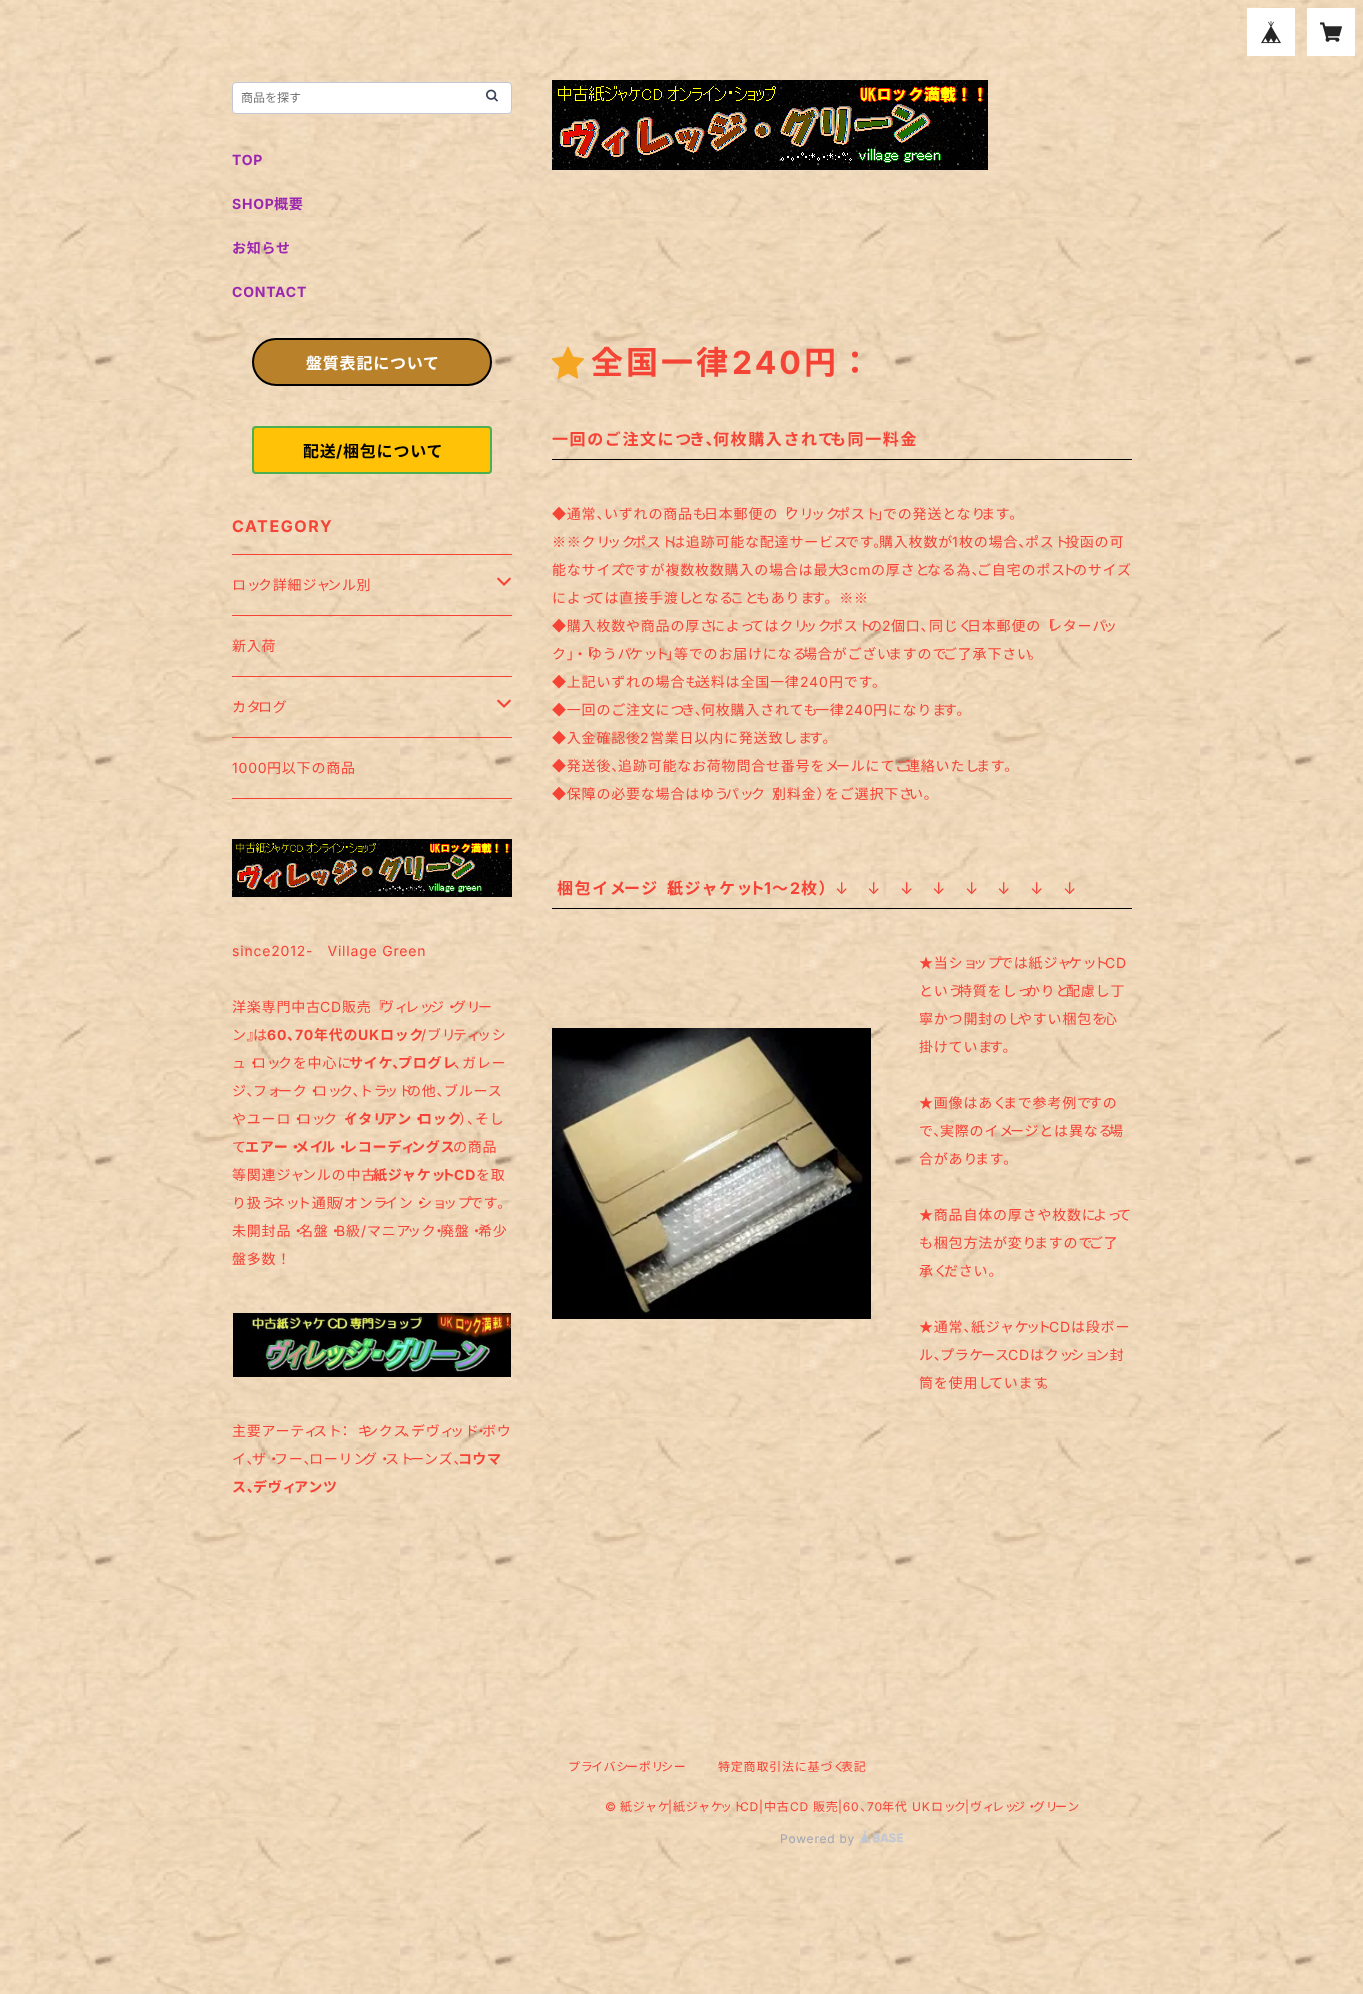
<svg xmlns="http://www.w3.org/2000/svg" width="1363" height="1994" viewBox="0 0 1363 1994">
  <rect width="100%" height="100%" fill="#ffffff"/>
  <image x="0" y="0" width="1363" height="1994" href="img1.png"/>
  <rect x="1247" y="8" width="48" height="48" fill="#ffffff"/>
  <image x="1261" y="21" width="20" height="23" href="img2.png"/>
  <rect x="1307" y="8" width="48" height="48" fill="#ffffff"/>
  <image x="1320" y="22" width="22" height="20" href="img3.png"/>
  <rect x="232.5" y="82.5" width="279" height="31" rx="3.5" fill="#ffffff" stroke="#c2c8d2"/>
  <text x="241" y="102" font-family="Noto Sans JP" font-size="12" fill="#757575">商品を探す</text>
  <image x="486" y="89" width="12" height="13" href="img4.png"/>
  <text x="232" y="165" font-family="Inter" font-size="14" font-weight="bold" letter-spacing="0.8" fill="#9b27b0">TOP</text>
  <text x="232" y="209" font-family="Inter" font-size="14" font-weight="bold" letter-spacing="0.8" fill="#9b27b0">SHOP</text>
  <text x="274" y="209" font-family="Noto Sans JP" font-size="14" font-weight="bold" letter-spacing="0.8" fill="#9b27b0">概要</text>
  <text x="232" y="253" font-family="Noto Sans JP" font-size="14" font-weight="bold" letter-spacing="0.8" fill="#9b27b0">お知らせ</text>
  <text x="232" y="297" font-family="Inter" font-size="14" font-weight="bold" letter-spacing="0.8" fill="#9b27b0">CONTACT</text>
  <rect x="253" y="339" width="238" height="46" rx="23" fill="#b98129" stroke="#000000" stroke-width="2"/>
  <text x="306" y="369" font-family="Noto Sans JP" font-size="16" font-weight="bold" letter-spacing="0.8" fill="#ffffff">盤質表記について</text>
  <rect x="253" y="427" width="238" height="46" rx="3" fill="#ffc206" stroke="#4caf50" stroke-width="2"/>
  <text x="303" y="457" font-family="Noto Sans JP" font-size="16" font-weight="bold" letter-spacing="0.8" fill="#000000">配送</text>
  <text x="336" y="457" font-family="Inter" font-size="16" font-weight="bold" letter-spacing="0.8" fill="#000000">/</text>
  <text x="343" y="457" font-family="Noto Sans JP" font-size="16" font-weight="bold" letter-spacing="0.8" fill="#000000">梱包について</text>
  <text x="232" y="532" font-family="Inter" font-size="16" font-weight="bold" letter-spacing="1.6" fill="#f54336">CATEGORY</text>
  <rect x="232" y="554" width="280" height="1" fill="#f54336"/>
  <rect x="232" y="798" width="280" height="1" fill="#f54336"/>
  <text x="232" y="590" font-family="Noto Sans JP" font-size="14" letter-spacing="0.8" fill="#f54336">ロッ</text>
  <text x="258" y="590" font-family="Noto Sans JP" font-size="14" letter-spacing="0.8" fill="#f54336">ク詳細ジャ</text>
  <text x="327" y="590" font-family="Noto Sans JP" font-size="14" letter-spacing="0.8" fill="#f54336">ンル別</text>
  <image x="497" y="577" width="14" height="9" href="img5.png"/>
  <rect x="232" y="615" width="280" height="1" fill="#f54336"/>
  <text x="232" y="651" font-family="Noto Sans JP" font-size="14" letter-spacing="0.8" fill="#f54336">新入荷</text>
  <rect x="232" y="676" width="280" height="1" fill="#f54336"/>
  <text x="232" y="712" font-family="Noto Sans JP" font-size="14" letter-spacing="0.8" fill="#f54336">カタ</text>
  <text x="258" y="712" font-family="Noto Sans JP" font-size="14" letter-spacing="0.8" fill="#f54336">ログ</text>
  <image x="497" y="699" width="14" height="9" href="img6.png"/>
  <rect x="232" y="737" width="280" height="1" fill="#f54336"/>
  <text x="232" y="773" font-family="Inter" font-size="14" letter-spacing="0.8" fill="#f54336">1000</text>
  <text x="267" y="773" font-family="Noto Sans JP" font-size="14" letter-spacing="0.8" fill="#f54336">円以下の商品</text>
  <image x="232" y="839" width="280" height="58" href="img7.png"/>
  <text x="232" y="956" font-family="Inter" font-size="14" letter-spacing="0.8" fill="#f54336" xml:space="preserve">since2012-   Village Green</text>
  <text x="232" y="1012" font-family="Noto Sans JP" font-size="14" letter-spacing="0.8" fill="#f54336">洋楽専門中古</text>
  <text x="320" y="1012" font-family="Inter" font-size="14" letter-spacing="0.8" fill="#f54336">CD</text>
  <text x="342" y="1012" font-family="Noto Sans JP" font-size="14" letter-spacing="0.8" fill="#f54336">販売『</text>
  <text x="380" y="1012" font-family="Noto Sans JP" font-size="14" letter-spacing="0.8" fill="#f54336">ヴィ</text>
  <text x="405" y="1012" font-family="Noto Sans JP" font-size="14" letter-spacing="0.8" fill="#f54336">レッ</text>
  <text x="430" y="1012" font-family="Noto Sans JP" font-size="14" letter-spacing="0.8" fill="#f54336">ジ・</text>
  <text x="452" y="1012" font-family="Noto Sans JP" font-size="14" letter-spacing="0.8" fill="#f54336">グリ</text>
  <text x="478" y="1012" font-family="Noto Sans JP" font-size="14" letter-spacing="0.8" fill="#f54336">ー</text>
  <text x="232" y="1040" font-family="Noto Sans JP" font-size="14" letter-spacing="0.8" fill="#f54336">ン』</text>
  <text x="253" y="1040" font-family="Noto Sans JP" font-size="14" letter-spacing="0.8" fill="#f54336">は</text>
  <text x="267" y="1040" font-family="Inter" font-size="14" font-weight="bold" letter-spacing="0.8" fill="#f54336">60</text>
  <text x="287" y="1040" font-family="Noto Sans JP" font-size="14" font-weight="bold" letter-spacing="0.8" fill="#f54336">、</text>
  <text x="295" y="1040" font-family="Inter" font-size="14" font-weight="bold" letter-spacing="0.8" fill="#f54336">70</text>
  <text x="314" y="1040" font-family="Noto Sans JP" font-size="14" font-weight="bold" letter-spacing="0.8" fill="#f54336">年代の</text>
  <text x="358" y="1040" font-family="Inter" font-size="14" font-weight="bold" letter-spacing="0.8" fill="#f54336">UK</text>
  <text x="380" y="1040" font-family="Noto Sans JP" font-size="14" font-weight="bold" letter-spacing="0.8" fill="#f54336">ロック</text>
  <text x="421" y="1040" font-family="Inter" font-size="14" letter-spacing="0.8" fill="#f54336">/</text>
  <text x="427" y="1040" font-family="Noto Sans JP" font-size="14" letter-spacing="0.8" fill="#f54336">ブリ</text>
  <text x="453" y="1040" font-family="Noto Sans JP" font-size="14" letter-spacing="0.8" fill="#f54336">ティ</text>
  <text x="477" y="1040" font-family="Noto Sans JP" font-size="14" letter-spacing="0.8" fill="#f54336">ッシ</text>
  <text x="232" y="1068" font-family="Noto Sans JP" font-size="14" letter-spacing="0.8" fill="#f54336">ュ・</text>
  <text x="252" y="1068" font-family="Noto Sans JP" font-size="14" letter-spacing="0.8" fill="#f54336">ロッ</text>
  <text x="278" y="1068" font-family="Noto Sans JP" font-size="14" letter-spacing="0.8" fill="#f54336">クを中心に</text>
  <text x="349" y="1068" font-family="Noto Sans JP" font-size="14" font-weight="bold" letter-spacing="0.8" fill="#f54336">サイケ、</text>
  <text x="398" y="1068" font-family="Noto Sans JP" font-size="14" font-weight="bold" letter-spacing="0.8" fill="#f54336">プログレ</text>
  <text x="454" y="1068" font-family="Noto Sans JP" font-size="14" letter-spacing="0.8" fill="#f54336">、</text>
  <text x="462" y="1068" font-family="Noto Sans JP" font-size="14" letter-spacing="0.8" fill="#f54336">ガレー</text>
  <text x="232" y="1096" font-family="Noto Sans JP" font-size="14" letter-spacing="0.8" fill="#f54336">ジ、</text>
  <text x="253" y="1096" font-family="Noto Sans JP" font-size="14" letter-spacing="0.8" fill="#f54336">フォ</text>
  <text x="278" y="1096" font-family="Noto Sans JP" font-size="14" letter-spacing="0.8" fill="#f54336">ーク・</text>
  <text x="313" y="1096" font-family="Noto Sans JP" font-size="14" letter-spacing="0.8" fill="#f54336">ロッ</text>
  <text x="339" y="1096" font-family="Noto Sans JP" font-size="14" letter-spacing="0.8" fill="#f54336">ク、</text>
  <text x="359" y="1096" font-family="Noto Sans JP" font-size="14" letter-spacing="0.8" fill="#f54336">トラ</text>
  <text x="384" y="1096" font-family="Noto Sans JP" font-size="14" letter-spacing="0.8" fill="#f54336">ッド</text>
  <text x="407" y="1096" font-family="Noto Sans JP" font-size="14" letter-spacing="0.8" fill="#f54336">の他、</text>
  <text x="444" y="1096" font-family="Noto Sans JP" font-size="14" letter-spacing="0.8" fill="#f54336">ブルース</text>
  <text x="232" y="1124" font-family="Noto Sans JP" font-size="14" letter-spacing="0.8" fill="#f54336">やユーロ・</text>
  <text x="297" y="1124" font-family="Noto Sans JP" font-size="14" letter-spacing="0.8" fill="#f54336">ロッ</text>
  <text x="323" y="1124" font-family="Noto Sans JP" font-size="14" letter-spacing="0.8" fill="#f54336">ク（</text>
  <text x="344" y="1124" font-family="Noto Sans JP" font-size="14" font-weight="bold" letter-spacing="0.8" fill="#f54336">イタリ</text>
  <text x="383" y="1124" font-family="Noto Sans JP" font-size="14" font-weight="bold" letter-spacing="0.8" fill="#f54336">アン・</text>
  <text x="418" y="1124" font-family="Noto Sans JP" font-size="14" font-weight="bold" letter-spacing="0.8" fill="#f54336">ロック</text>
  <text x="459" y="1124" font-family="Noto Sans JP" font-size="14" letter-spacing="0.8" fill="#f54336">）</text>
  <text x="467" y="1124" font-family="Noto Sans JP" font-size="14" letter-spacing="0.8" fill="#f54336">、</text>
  <text x="475" y="1124" font-family="Noto Sans JP" font-size="14" letter-spacing="0.8" fill="#f54336">そし</text>
  <text x="232" y="1152" font-family="Noto Sans JP" font-size="14" letter-spacing="0.8" fill="#f54336">て</text>
  <text x="245" y="1152" font-family="Noto Sans JP" font-size="14" font-weight="bold" letter-spacing="0.8" fill="#f54336">エアー・</text>
  <text x="295" y="1152" font-family="Noto Sans JP" font-size="14" font-weight="bold" letter-spacing="0.8" fill="#f54336">メイ</text>
  <text x="321" y="1152" font-family="Noto Sans JP" font-size="14" font-weight="bold" letter-spacing="0.8" fill="#f54336">ル・</text>
  <text x="343" y="1152" font-family="Noto Sans JP" font-size="14" font-weight="bold" letter-spacing="0.8" fill="#f54336">レコーディ</text>
  <text x="411" y="1152" font-family="Noto Sans JP" font-size="14" font-weight="bold" letter-spacing="0.8" fill="#f54336">ングス</text>
  <text x="453" y="1152" font-family="Noto Sans JP" font-size="14" letter-spacing="0.8" fill="#f54336">の商品</text>
  <text x="232" y="1180" font-family="Noto Sans JP" font-size="14" letter-spacing="0.8" fill="#f54336">等関連ジャ</text>
  <text x="302" y="1180" font-family="Noto Sans JP" font-size="14" letter-spacing="0.8" fill="#f54336">ンルの中古</text>
  <text x="373" y="1180" font-family="Noto Sans JP" font-size="14" font-weight="bold" letter-spacing="0.8" fill="#f54336">紙ジャケッ</text>
  <text x="441" y="1180" font-family="Noto Sans JP" font-size="14" font-weight="bold" letter-spacing="0.8" fill="#f54336">ト</text>
  <text x="454" y="1180" font-family="Inter" font-size="14" font-weight="bold" letter-spacing="0.8" fill="#f54336">CD</text>
  <text x="476" y="1180" font-family="Noto Sans JP" font-size="14" letter-spacing="0.8" fill="#f54336">を取</text>
  <text x="232" y="1208" font-family="Noto Sans JP" font-size="14" letter-spacing="0.8" fill="#f54336">り扱う</text>
  <text x="271" y="1208" font-family="Noto Sans JP" font-size="14" letter-spacing="0.8" fill="#f54336">ネッ</text>
  <text x="297" y="1208" font-family="Noto Sans JP" font-size="14" letter-spacing="0.8" fill="#f54336">ト通販</text>
  <text x="338" y="1208" font-family="Inter" font-size="14" letter-spacing="0.8" fill="#f54336">/</text>
  <text x="344" y="1208" font-family="Noto Sans JP" font-size="14" letter-spacing="0.8" fill="#f54336">オンラ</text>
  <text x="384" y="1208" font-family="Noto Sans JP" font-size="14" letter-spacing="0.8" fill="#f54336">イン・</text>
  <text x="418" y="1208" font-family="Noto Sans JP" font-size="14" letter-spacing="0.8" fill="#f54336">ショ</text>
  <text x="443" y="1208" font-family="Noto Sans JP" font-size="14" letter-spacing="0.8" fill="#f54336">ップ</text>
  <text x="469" y="1208" font-family="Noto Sans JP" font-size="14" letter-spacing="0.8" fill="#f54336">です。</text>
  <text x="232" y="1236" font-family="Noto Sans JP" font-size="14" letter-spacing="0.8" fill="#f54336">未開封品・</text>
  <text x="299" y="1236" font-family="Noto Sans JP" font-size="14" letter-spacing="0.8" fill="#f54336">名盤・</text>
  <text x="336" y="1236" font-family="Inter" font-size="14" letter-spacing="0.8" fill="#f54336">B</text>
  <text x="346" y="1236" font-family="Noto Sans JP" font-size="14" letter-spacing="0.8" fill="#f54336">級</text>
  <text x="361" y="1236" font-family="Inter" font-size="14" letter-spacing="0.8" fill="#f54336">/</text>
  <text x="367" y="1236" font-family="Noto Sans JP" font-size="14" letter-spacing="0.8" fill="#f54336">マニア</text>
  <text x="407" y="1236" font-family="Noto Sans JP" font-size="14" letter-spacing="0.8" fill="#f54336">ック</text>
  <text x="432" y="1236" font-family="Noto Sans JP" font-size="14" letter-spacing="0.8" fill="#f54336">・</text>
  <text x="440" y="1236" font-family="Noto Sans JP" font-size="14" letter-spacing="0.8" fill="#f54336">廃盤・</text>
  <text x="478" y="1236" font-family="Noto Sans JP" font-size="14" letter-spacing="0.8" fill="#f54336">希少</text>
  <text x="232" y="1264" font-family="Noto Sans JP" font-size="14" letter-spacing="0.8" fill="#f54336">盤多数！</text>
  <image x="233" y="1313" width="278" height="64" href="img8.png"/>
  <text x="232" y="1436" word-spacing="1" font-family="Noto Sans JP" font-size="14" letter-spacing="0.8" fill="#f54336">主要アーティ</text>
  <text x="313" y="1436" word-spacing="1" font-family="Noto Sans JP" font-size="14" letter-spacing="0.8" fill="#f54336">スト</text>
  <text x="338" y="1436" word-spacing="1" font-family="Noto Sans JP" font-size="14" letter-spacing="0.8" fill="#f54336">： キ</text>
  <text x="364" y="1436" word-spacing="1" font-family="Noto Sans JP" font-size="14" letter-spacing="0.8" fill="#f54336">ンクス</text>
  <text x="404" y="1436" word-spacing="1" font-family="Noto Sans JP" font-size="14" letter-spacing="0.8" fill="#f54336">、</text>
  <text x="411" y="1436" word-spacing="1" font-family="Noto Sans JP" font-size="14" letter-spacing="0.8" fill="#f54336">デヴィ</text>
  <text x="450" y="1436" word-spacing="1" font-family="Noto Sans JP" font-size="14" letter-spacing="0.8" fill="#f54336">ッド</text>
  <text x="474" y="1436" word-spacing="1" font-family="Noto Sans JP" font-size="14" letter-spacing="0.8" fill="#f54336">・</text>
  <text x="482" y="1436" word-spacing="1" font-family="Noto Sans JP" font-size="14" letter-spacing="0.8" fill="#f54336">ボウ</text>
  <text x="232" y="1464" font-family="Noto Sans JP" font-size="14" letter-spacing="0.8" fill="#f54336">イ、</text>
  <text x="252" y="1464" font-family="Noto Sans JP" font-size="14" letter-spacing="0.8" fill="#f54336">ザ・</text>
  <text x="274" y="1464" font-family="Noto Sans JP" font-size="14" letter-spacing="0.8" fill="#f54336">フー、</text>
  <text x="309" y="1464" font-family="Noto Sans JP" font-size="14" letter-spacing="0.8" fill="#f54336">ローリン</text>
  <text x="363" y="1464" font-family="Noto Sans JP" font-size="14" letter-spacing="0.8" fill="#f54336">グ・</text>
  <text x="385" y="1464" font-family="Noto Sans JP" font-size="14" letter-spacing="0.8" fill="#f54336">スト</text>
  <text x="410" y="1464" font-family="Noto Sans JP" font-size="14" letter-spacing="0.8" fill="#f54336">ーンズ、</text>
  <text x="458" y="1464" font-family="Noto Sans JP" font-size="14" font-weight="bold" letter-spacing="0.8" fill="#f54336">コウマ</text>
  <text x="232" y="1492" font-family="Noto Sans JP" font-size="14" font-weight="bold" letter-spacing="0.8" fill="#f54336">ス、</text>
  <text x="253" y="1492" font-family="Noto Sans JP" font-size="14" font-weight="bold" letter-spacing="0.8" fill="#f54336">デヴィ</text>
  <text x="294" y="1492" font-family="Noto Sans JP" font-size="14" font-weight="bold" letter-spacing="0.8" fill="#f54336">アンツ</text>
  <image x="552" y="80" width="436" height="90" href="img9.png"/>
  <image x="552" y="346" width="32" height="33" href="img10.png"/>
  <text x="591" y="374" font-family="Noto Sans JP" font-size="32" font-weight="bold" letter-spacing="3" fill="#f54336">全国一律</text>
  <text x="732" y="374" font-family="Inter" font-size="32" font-weight="bold" letter-spacing="3" fill="#f54336">240</text>
  <text x="804" y="374" font-family="Noto Sans JP" font-size="32" font-weight="bold" letter-spacing="3" fill="#f54336">円：</text>
  <rect x="552" y="459" width="580" height="1" fill="#000000"/>
  <text x="552" y="445" font-family="Noto Sans JP" font-size="16" font-weight="bold" letter-spacing="1.6" fill="#f54336">一回のご注文につ</text>
  <text x="689" y="445" font-family="Noto Sans JP" font-size="16" font-weight="bold" letter-spacing="1.6" fill="#f54336">き、</text>
  <text x="713" y="445" font-family="Noto Sans JP" font-size="16" font-weight="bold" letter-spacing="1.6" fill="#f54336">何枚購入されて</text>
  <text x="830" y="445" font-family="Noto Sans JP" font-size="16" font-weight="bold" letter-spacing="1.6" fill="#f54336">も同一料金</text>
  <text x="552" y="519" font-family="Noto Sans JP" font-size="14" letter-spacing="0.8" fill="#f54336">◆通常、</text>
  <text x="604" y="519" font-family="Noto Sans JP" font-size="14" letter-spacing="0.8" fill="#f54336">いずれの商品も</text>
  <text x="704" y="519" font-family="Noto Sans JP" font-size="14" letter-spacing="0.8" fill="#f54336">日本郵便の「</text>
  <text x="785" y="519" font-family="Noto Sans JP" font-size="14" letter-spacing="0.8" fill="#f54336">クリ</text>
  <text x="811" y="519" font-family="Noto Sans JP" font-size="14" letter-spacing="0.8" fill="#f54336">ック</text>
  <text x="836" y="519" font-family="Noto Sans JP" font-size="14" letter-spacing="0.8" fill="#f54336">ポスト</text>
  <text x="876" y="519" font-family="Noto Sans JP" font-size="14" letter-spacing="0.8" fill="#f54336">」</text>
  <text x="883" y="519" font-family="Noto Sans JP" font-size="14" letter-spacing="0.8" fill="#f54336">での発送となり</text>
  <text x="981" y="519" font-family="Noto Sans JP" font-size="14" letter-spacing="0.8" fill="#f54336">ます。</text>
  <text x="552" y="547" font-family="Noto Sans JP" font-size="14" letter-spacing="0.8" fill="#f54336">※※クリ</text>
  <text x="607" y="547" font-family="Noto Sans JP" font-size="14" letter-spacing="0.8" fill="#f54336">ック</text>
  <text x="632" y="547" font-family="Noto Sans JP" font-size="14" letter-spacing="0.8" fill="#f54336">ポスト</text>
  <text x="671" y="547" font-family="Noto Sans JP" font-size="14" letter-spacing="0.8" fill="#f54336">は追跡可能な配達サービス</text>
  <text x="845" y="547" font-family="Noto Sans JP" font-size="14" letter-spacing="0.8" fill="#f54336">です。</text>
  <text x="879" y="547" font-family="Noto Sans JP" font-size="14" letter-spacing="0.8" fill="#f54336">購入枚数が</text>
  <text x="952" y="547" font-family="Inter" font-size="14" letter-spacing="0.8" fill="#f54336">1</text>
  <text x="959" y="547" font-family="Noto Sans JP" font-size="14" letter-spacing="0.8" fill="#f54336">枚の場合、</text>
  <text x="1025" y="547" font-family="Noto Sans JP" font-size="14" letter-spacing="0.8" fill="#f54336">ポスト</text>
  <text x="1065" y="547" font-family="Noto Sans JP" font-size="14" letter-spacing="0.8" fill="#f54336">投函の可</text>
  <text x="552" y="575" font-family="Noto Sans JP" font-size="14" letter-spacing="0.8" fill="#f54336">能なサイズ</text>
  <text x="621" y="575" font-family="Noto Sans JP" font-size="14" letter-spacing="0.8" fill="#f54336">ですが複数枚数購入の場合は最大</text>
  <text x="840" y="575" font-family="Inter" font-size="14" letter-spacing="0.8" fill="#f54336">3cm</text>
  <text x="871" y="575" font-family="Noto Sans JP" font-size="14" letter-spacing="0.8" fill="#f54336">の厚さと</text>
  <text x="927" y="575" font-family="Noto Sans JP" font-size="14" letter-spacing="0.8" fill="#f54336">なる為、</text>
  <text x="977" y="575" font-family="Noto Sans JP" font-size="14" letter-spacing="0.8" fill="#f54336">ご自宅のポス</text>
  <text x="1062" y="575" font-family="Noto Sans JP" font-size="14" letter-spacing="0.8" fill="#f54336">ト</text>
  <text x="1073" y="575" font-family="Noto Sans JP" font-size="14" letter-spacing="0.8" fill="#f54336">のサイズ</text>
  <text x="552" y="603" font-family="Noto Sans JP" font-size="14" letter-spacing="0.8" fill="#f54336">によっ</text>
  <text x="590" y="603" font-family="Noto Sans JP" font-size="14" letter-spacing="0.8" fill="#f54336">ては直接手渡し</text>
  <text x="690" y="603" font-family="Noto Sans JP" font-size="14" letter-spacing="0.8" fill="#f54336">となる</text>
  <text x="730" y="603" font-family="Noto Sans JP" font-size="14" letter-spacing="0.8" fill="#f54336">こと</text>
  <text x="756" y="603" font-family="Noto Sans JP" font-size="14" letter-spacing="0.8" fill="#f54336">もありま</text>
  <text x="811" y="603" font-family="Noto Sans JP" font-size="14" letter-spacing="0.8" fill="#f54336">す。※※</text>
  <text x="552" y="631" font-family="Noto Sans JP" font-size="14" letter-spacing="0.8" fill="#f54336">◆購入枚数や商品の厚さ</text>
  <text x="711" y="631" font-family="Noto Sans JP" font-size="14" letter-spacing="0.8" fill="#f54336">によっ</text>
  <text x="750" y="631" font-family="Noto Sans JP" font-size="14" letter-spacing="0.8" fill="#f54336">てはクリ</text>
  <text x="803" y="631" font-family="Noto Sans JP" font-size="14" letter-spacing="0.8" fill="#f54336">ック</text>
  <text x="829" y="631" font-family="Noto Sans JP" font-size="14" letter-spacing="0.8" fill="#f54336">ポスト</text>
  <text x="868" y="631" font-family="Noto Sans JP" font-size="14" letter-spacing="0.8" fill="#f54336">の</text>
  <text x="882" y="631" font-family="Inter" font-size="14" letter-spacing="0.8" fill="#f54336">2</text>
  <text x="891" y="631" font-family="Noto Sans JP" font-size="14" letter-spacing="0.8" fill="#f54336">個口、</text>
  <text x="929" y="631" font-family="Noto Sans JP" font-size="14" letter-spacing="0.8" fill="#f54336">同じく</text>
  <text x="967" y="631" font-family="Noto Sans JP" font-size="14" letter-spacing="0.8" fill="#f54336">日本郵便の「</text>
  <text x="1048" y="631" font-family="Noto Sans JP" font-size="14" letter-spacing="0.8" fill="#f54336">レターパ</text>
  <text x="1103" y="631" font-family="Noto Sans JP" font-size="14" letter-spacing="0.8" fill="#f54336">ッ</text>
  <text x="552" y="659" font-family="Noto Sans JP" font-size="14" letter-spacing="0.8" fill="#f54336">ク」</text>
  <text x="573" y="659" font-family="Noto Sans JP" font-size="14" letter-spacing="0.8" fill="#f54336">・</text>
  <text x="580" y="659" font-family="Noto Sans JP" font-size="14" letter-spacing="0.8" fill="#f54336">「</text>
  <text x="588" y="659" font-family="Noto Sans JP" font-size="14" letter-spacing="0.8" fill="#f54336">ゆうパ</text>
  <text x="629" y="659" font-family="Noto Sans JP" font-size="14" letter-spacing="0.8" fill="#f54336">ケッ</text>
  <text x="655" y="659" font-family="Noto Sans JP" font-size="14" letter-spacing="0.8" fill="#f54336">ト</text>
  <text x="666" y="659" font-family="Noto Sans JP" font-size="14" letter-spacing="0.8" fill="#f54336">」</text>
  <text x="674" y="659" font-family="Noto Sans JP" font-size="14" letter-spacing="0.8" fill="#f54336">等でのお届けになる</text>
  <text x="803" y="659" font-family="Noto Sans JP" font-size="14" letter-spacing="0.8" fill="#f54336">場合がござい</text>
  <text x="888" y="659" font-family="Noto Sans JP" font-size="14" letter-spacing="0.8" fill="#f54336">ますので</text>
  <text x="943" y="659" font-family="Noto Sans JP" font-size="14" letter-spacing="0.8" fill="#f54336">ご了承下さい</text>
  <text x="1028" y="659" font-family="Noto Sans JP" font-size="14" letter-spacing="0.8" fill="#f54336">。</text>
  <text x="552" y="687" font-family="Noto Sans JP" font-size="14" letter-spacing="0.8" fill="#f54336">◆上記いずれの場合も</text>
  <text x="696" y="687" font-family="Noto Sans JP" font-size="14" letter-spacing="0.8" fill="#f54336">送料は全国一律</text>
  <text x="800" y="687" font-family="Inter" font-size="14" letter-spacing="0.8" fill="#f54336">240</text>
  <text x="829" y="687" font-family="Noto Sans JP" font-size="14" letter-spacing="0.8" fill="#f54336">円です。</text>
  <text x="552" y="715" font-family="Noto Sans JP" font-size="14" letter-spacing="0.8" fill="#f54336">◆一回のご注文につ</text>
  <text x="681" y="715" font-family="Noto Sans JP" font-size="14" letter-spacing="0.8" fill="#f54336">き、</text>
  <text x="701" y="715" font-family="Noto Sans JP" font-size="14" letter-spacing="0.8" fill="#f54336">何枚購入されても</text>
  <text x="815" y="715" font-family="Noto Sans JP" font-size="14" letter-spacing="0.8" fill="#f54336">一律</text>
  <text x="845" y="715" font-family="Inter" font-size="14" letter-spacing="0.8" fill="#f54336">240</text>
  <text x="873" y="715" font-family="Noto Sans JP" font-size="14" letter-spacing="0.8" fill="#f54336">円になりま</text>
  <text x="943" y="715" font-family="Noto Sans JP" font-size="14" letter-spacing="0.8" fill="#f54336">す。</text>
  <text x="552" y="743" font-family="Noto Sans JP" font-size="14" letter-spacing="0.8" fill="#f54336">◆入金確認後</text>
  <text x="640" y="743" font-family="Inter" font-size="14" letter-spacing="0.8" fill="#f54336">2</text>
  <text x="650" y="743" font-family="Noto Sans JP" font-size="14" letter-spacing="0.8" fill="#f54336">営業日以内に発送致しま</text>
  <text x="809" y="743" font-family="Noto Sans JP" font-size="14" letter-spacing="0.8" fill="#f54336">す。</text>
  <text x="552" y="771" font-family="Noto Sans JP" font-size="14" letter-spacing="0.8" fill="#f54336">◆発送後、</text>
  <text x="618" y="771" font-family="Noto Sans JP" font-size="14" letter-spacing="0.8" fill="#f54336">追跡可能なお荷物問合せ番号をメ</text>
  <text x="836" y="771" font-family="Noto Sans JP" font-size="14" letter-spacing="0.8" fill="#f54336">ールにてご</text>
  <text x="906" y="771" font-family="Noto Sans JP" font-size="14" letter-spacing="0.8" fill="#f54336">連絡いたし</text>
  <text x="976" y="771" font-family="Noto Sans JP" font-size="14" letter-spacing="0.8" fill="#f54336">ます。</text>
  <text x="552" y="799" font-family="Noto Sans JP" font-size="14" letter-spacing="0.8" fill="#f54336">◆保障の必要な場合はゆう</text>
  <text x="725" y="799" font-family="Noto Sans JP" font-size="14" letter-spacing="0.8" fill="#f54336">パッ</text>
  <text x="751" y="799" font-family="Noto Sans JP" font-size="14" letter-spacing="0.8" fill="#f54336">ク（</text>
  <text x="772" y="799" font-family="Noto Sans JP" font-size="14" letter-spacing="0.8" fill="#f54336">別料金）</text>
  <text x="825" y="799" font-family="Noto Sans JP" font-size="14" letter-spacing="0.8" fill="#f54336">をご選択下さ</text>
  <text x="909" y="799" font-family="Noto Sans JP" font-size="14" letter-spacing="0.8" fill="#f54336">い。</text>
  <rect x="552" y="908" width="580" height="1" fill="#000000"/>
  <text x="557" y="894" font-family="Noto Sans JP" font-size="16" font-weight="bold" letter-spacing="1.6" fill="#f54336">梱包イメ</text>
  <text x="624" y="894" font-family="Noto Sans JP" font-size="16" font-weight="bold" letter-spacing="1.6" fill="#f54336">ージ（</text>
  <text x="667" y="894" font-family="Noto Sans JP" font-size="16" font-weight="bold" letter-spacing="1.6" fill="#f54336">紙ジャケッ</text>
  <text x="749" y="894" font-family="Noto Sans JP" font-size="16" font-weight="bold" letter-spacing="1.6" fill="#f54336">ト</text>
  <text x="764" y="894" font-family="Inter" font-size="16" font-weight="bold" letter-spacing="1.6" fill="#f54336">1</text>
  <text x="772" y="894" font-family="Noto Sans JP" font-size="16" font-weight="bold" letter-spacing="1.6" fill="#f54336">～</text>
  <text x="790" y="894" font-family="Inter" font-size="16" font-weight="bold" letter-spacing="1.6" fill="#f54336">2</text>
  <text x="801" y="894" font-family="Noto Sans JP" font-size="16" font-weight="bold" letter-spacing="1.6" fill="#f54336">枚）</text>
  <text x="835" y="894" font-family="Inter" font-size="16" letter-spacing="1.6" fill="#f54336">↓</text>
  <text x="867" y="894" font-family="Inter" font-size="16" letter-spacing="1.6" fill="#f54336">↓</text>
  <text x="900" y="894" font-family="Inter" font-size="16" letter-spacing="1.6" fill="#f54336">↓</text>
  <text x="932" y="894" font-family="Inter" font-size="16" letter-spacing="1.6" fill="#f54336">↓</text>
  <text x="965" y="894" font-family="Inter" font-size="16" letter-spacing="1.6" fill="#f54336">↓</text>
  <text x="997" y="894" font-family="Inter" font-size="16" letter-spacing="1.6" fill="#f54336">↓</text>
  <text x="1030" y="894" font-family="Inter" font-size="16" letter-spacing="1.6" fill="#f54336">↓</text>
  <text x="1063" y="894" font-family="Inter" font-size="16" letter-spacing="1.6" fill="#f54336">↓</text>
  <image x="552" y="1028" width="319" height="291" href="img11.png"/>
  <text x="919" y="968" font-family="Noto Sans JP" font-size="14" letter-spacing="0.8" fill="#f54336">★当ショ</text>
  <text x="973" y="968" font-family="Noto Sans JP" font-size="14" letter-spacing="0.8" fill="#f54336">ップ</text>
  <text x="999" y="968" font-family="Noto Sans JP" font-size="14" letter-spacing="0.8" fill="#f54336">では紙ジャ</text>
  <text x="1068" y="968" font-family="Noto Sans JP" font-size="14" letter-spacing="0.8" fill="#f54336">ケッ</text>
  <text x="1094" y="968" font-family="Noto Sans JP" font-size="14" letter-spacing="0.8" fill="#f54336">ト</text>
  <text x="1105" y="968" font-family="Inter" font-size="14" letter-spacing="0.8" fill="#f54336">CD</text>
  <text x="919" y="996" font-family="Noto Sans JP" font-size="14" letter-spacing="0.8" fill="#f54336">という</text>
  <text x="958" y="996" font-family="Noto Sans JP" font-size="14" letter-spacing="0.8" fill="#f54336">特質をしっ</text>
  <text x="1026" y="996" font-family="Noto Sans JP" font-size="14" letter-spacing="0.8" fill="#f54336">かりと</text>
  <text x="1066" y="996" font-family="Noto Sans JP" font-size="14" letter-spacing="0.8" fill="#f54336">配慮し丁</text>
  <text x="919" y="1024" font-family="Noto Sans JP" font-size="14" letter-spacing="0.8" fill="#f54336">寧かつ開封のし</text>
  <text x="1018" y="1024" font-family="Noto Sans JP" font-size="14" letter-spacing="0.8" fill="#f54336">やすい梱包を</text>
  <text x="1103" y="1024" font-family="Noto Sans JP" font-size="14" letter-spacing="0.8" fill="#f54336">心</text>
  <text x="919" y="1052" font-family="Noto Sans JP" font-size="14" letter-spacing="0.8" fill="#f54336">掛けていま</text>
  <text x="989" y="1052" font-family="Noto Sans JP" font-size="14" letter-spacing="0.8" fill="#f54336">す。</text>
  <text x="919" y="1108" font-family="Noto Sans JP" font-size="14" letter-spacing="0.8" fill="#f54336">★画像はあく</text>
  <text x="1003" y="1108" font-family="Noto Sans JP" font-size="14" letter-spacing="0.8" fill="#f54336">まで参考例で</text>
  <text x="1088" y="1108" font-family="Noto Sans JP" font-size="14" letter-spacing="0.8" fill="#f54336">すの</text>
  <text x="919" y="1136" font-family="Noto Sans JP" font-size="14" letter-spacing="0.8" fill="#f54336">で、</text>
  <text x="940" y="1136" font-family="Noto Sans JP" font-size="14" letter-spacing="0.8" fill="#f54336">実際のイメ</text>
  <text x="1010" y="1136" font-family="Noto Sans JP" font-size="14" letter-spacing="0.8" fill="#f54336">ージとは異なる</text>
  <text x="1109" y="1136" font-family="Noto Sans JP" font-size="14" letter-spacing="0.8" fill="#f54336">場</text>
  <text x="919" y="1164" font-family="Noto Sans JP" font-size="14" letter-spacing="0.8" fill="#f54336">合があり</text>
  <text x="975" y="1164" font-family="Noto Sans JP" font-size="14" letter-spacing="0.8" fill="#f54336">ます。</text>
  <text x="919" y="1220" font-family="Noto Sans JP" font-size="14" letter-spacing="0.8" fill="#f54336">★商品自体の厚さや枚数に</text>
  <text x="1093" y="1220" font-family="Noto Sans JP" font-size="14" letter-spacing="0.8" fill="#f54336">よっ</text>
  <text x="1117" y="1220" font-family="Noto Sans JP" font-size="14" letter-spacing="0.8" fill="#f54336">て</text>
  <text x="919" y="1248" font-family="Noto Sans JP" font-size="14" letter-spacing="0.8" fill="#f54336">も梱包方法が変り</text>
  <text x="1034" y="1248" font-family="Noto Sans JP" font-size="14" letter-spacing="0.8" fill="#f54336">ますので</text>
  <text x="1089" y="1248" font-family="Noto Sans JP" font-size="14" letter-spacing="0.8" fill="#f54336">ご了</text>
  <text x="919" y="1276" font-family="Noto Sans JP" font-size="14" letter-spacing="0.8" fill="#f54336">承く</text>
  <text x="944" y="1276" font-family="Noto Sans JP" font-size="14" letter-spacing="0.8" fill="#f54336">ださい。</text>
  <text x="919" y="1332" font-family="Noto Sans JP" font-size="14" letter-spacing="0.8" fill="#f54336">★通常、</text>
  <text x="971" y="1332" font-family="Noto Sans JP" font-size="14" letter-spacing="0.8" fill="#f54336">紙ジャケ</text>
  <text x="1026" y="1332" font-family="Noto Sans JP" font-size="14" letter-spacing="0.8" fill="#f54336">ッ</text>
  <text x="1037" y="1332" font-family="Noto Sans JP" font-size="14" letter-spacing="0.8" fill="#f54336">ト</text>
  <text x="1049" y="1332" font-family="Inter" font-size="14" letter-spacing="0.8" fill="#f54336">CD</text>
  <text x="1071" y="1332" font-family="Noto Sans JP" font-size="14" letter-spacing="0.8" fill="#f54336">は段ボー</text>
  <text x="919" y="1360" font-family="Noto Sans JP" font-size="14" letter-spacing="0.8" fill="#f54336">ル、</text>
  <text x="940" y="1360" font-family="Noto Sans JP" font-size="14" letter-spacing="0.8" fill="#f54336">プラケ</text>
  <text x="981" y="1360" font-family="Noto Sans JP" font-size="14" letter-spacing="0.8" fill="#f54336">ース</text>
  <text x="1008" y="1360" font-family="Inter" font-size="14" letter-spacing="0.8" fill="#f54336">CD</text>
  <text x="1030" y="1360" font-family="Noto Sans JP" font-size="14" letter-spacing="0.8" fill="#f54336">はクッ</text>
  <text x="1070" y="1360" font-family="Noto Sans JP" font-size="14" letter-spacing="0.8" fill="#f54336">ショ</text>
  <text x="1095" y="1360" font-family="Noto Sans JP" font-size="14" letter-spacing="0.8" fill="#f54336">ン封</text>
  <text x="919" y="1388" font-family="Noto Sans JP" font-size="14" letter-spacing="0.8" fill="#f54336">筒を使用し</text>
  <text x="989" y="1388" font-family="Noto Sans JP" font-size="14" letter-spacing="0.8" fill="#f54336">ています</text>
  <text x="1042" y="1388" font-family="Noto Sans JP" font-size="14" letter-spacing="0.8" fill="#f54336">。</text>
  <text x="568" y="1771" font-family="Noto Sans JP" font-size="12" letter-spacing="0.8" fill="#f54336">プラ</text>
  <text x="591" y="1771" font-family="Noto Sans JP" font-size="12" letter-spacing="0.8" fill="#f54336">イバシ</text>
  <text x="626" y="1771" font-family="Noto Sans JP" font-size="12" letter-spacing="0.8" fill="#f54336">ーポリ</text>
  <text x="661" y="1771" font-family="Noto Sans JP" font-size="12" letter-spacing="0.8" fill="#f54336">シー</text>
  <text x="718" y="1771" font-family="Noto Sans JP" font-size="12" letter-spacing="0.8" fill="#f54336">特定商取引法に基づく</text>
  <text x="841" y="1771" font-family="Noto Sans JP" font-size="12" letter-spacing="0.8" fill="#f54336">表記</text>
  <text x="605" y="1811" font-family="Inter" font-size="12" letter-spacing="0.8" fill="#f54336">©</text>
  <text x="620" y="1811" font-family="Noto Sans JP" font-size="12" letter-spacing="0.8" fill="#f54336">紙ジャケ</text>
  <text x="668" y="1811" font-family="Inter" font-size="12" letter-spacing="0.8" fill="#f54336">|</text>
  <text x="673" y="1811" font-family="Noto Sans JP" font-size="12" letter-spacing="0.8" fill="#f54336">紙ジャケ</text>
  <text x="720" y="1811" font-family="Noto Sans JP" font-size="12" letter-spacing="0.8" fill="#f54336">ット</text>
  <text x="740" y="1811" font-family="Inter" font-size="12" letter-spacing="0.8" fill="#f54336">CD|</text>
  <text x="764" y="1811" font-family="Noto Sans JP" font-size="12" letter-spacing="0.8" fill="#f54336">中古</text>
  <text x="790" y="1811" font-family="Inter" font-size="12" letter-spacing="0.8" fill="#f54336">CD</text>
  <text x="813" y="1811" font-family="Noto Sans JP" font-size="12" letter-spacing="0.8" fill="#f54336">販売</text>
  <text x="838" y="1811" font-family="Inter" font-size="12" letter-spacing="0.8" fill="#f54336">|60</text>
  <text x="860" y="1811" font-family="Noto Sans JP" font-size="12" letter-spacing="0.8" fill="#f54336">、</text>
  <text x="867" y="1811" font-family="Inter" font-size="12" letter-spacing="0.8" fill="#f54336">70</text>
  <text x="882" y="1811" font-family="Noto Sans JP" font-size="12" letter-spacing="0.8" fill="#f54336">年代</text>
  <text x="912" y="1811" font-family="Inter" font-size="12" letter-spacing="0.8" fill="#f54336">UK</text>
  <text x="931" y="1811" font-family="Noto Sans JP" font-size="12" letter-spacing="0.8" fill="#f54336">ロッ</text>
  <text x="954" y="1811" font-family="Noto Sans JP" font-size="12" letter-spacing="0.8" fill="#f54336">ク</text>
  <text x="965" y="1811" font-family="Inter" font-size="12" letter-spacing="0.8" fill="#f54336">|</text>
  <text x="970" y="1811" font-family="Noto Sans JP" font-size="12" letter-spacing="0.8" fill="#f54336">ヴィ</text>
  <text x="992" y="1811" font-family="Noto Sans JP" font-size="12" letter-spacing="0.8" fill="#f54336">レッ</text>
  <text x="1013" y="1811" font-family="Noto Sans JP" font-size="12" letter-spacing="0.8" fill="#f54336">ジ・</text>
  <text x="1033" y="1811" font-family="Noto Sans JP" font-size="12" letter-spacing="0.8" fill="#f54336">グリ</text>
  <text x="1055" y="1811" font-family="Noto Sans JP" font-size="12" letter-spacing="0.8" fill="#f54336">ーン</text>
  <text x="780" y="1843" font-family="Inter" font-size="12" letter-spacing="0.8" fill="#a0a7b4">Powered by</text>
  <image x="859" y="1830" width="44" height="13" href="img12.png"/>
</svg>
